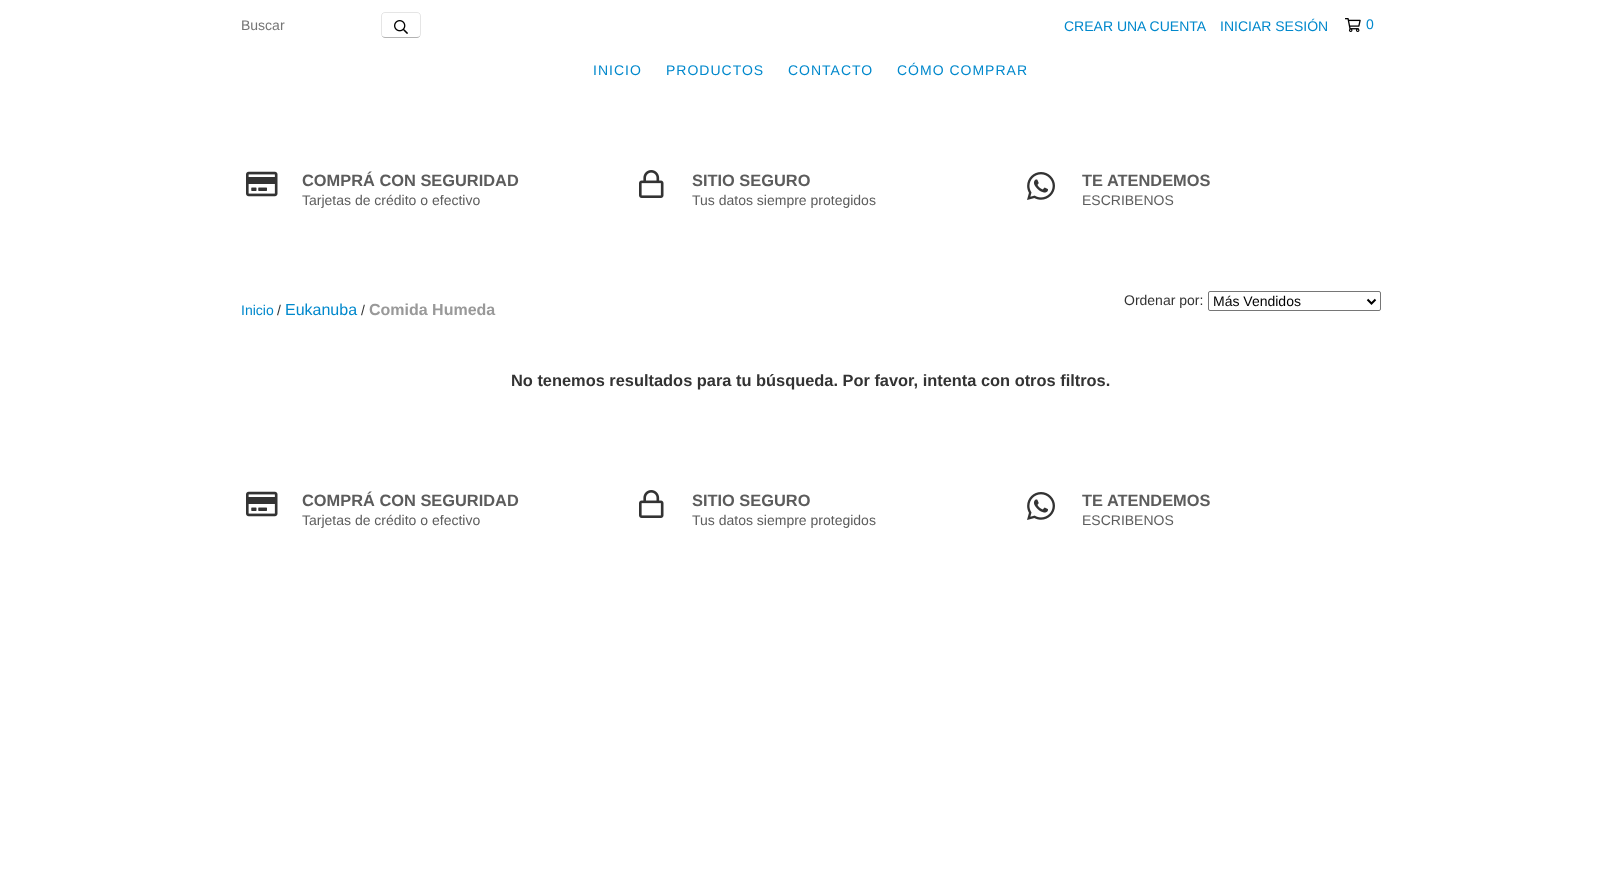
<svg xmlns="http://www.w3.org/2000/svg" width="1621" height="873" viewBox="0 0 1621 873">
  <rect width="100%" height="100%" fill="#ffffff"/>
  <text x="241" y="30" font-family="Liberation Sans" font-size="14" fill="#757575">Buscar</text>
  <path d="M419.5 36.5C419 37 418 37.5 417 37.5H385C384 37.5 383 37 382.5 36.5" fill="none" stroke="#b3b3b3"/>
  <path d="M382.5 36.5C382 36 381.5 35 381.5 34V16C381.5 15 382 14 382.5 13.5C383 13 384 12.5 385 12.5H417C418 12.5 419 13 419.5 13.5C420 14 420.5 15 420.5 16V34C420.5 35 420 36 419.5 36.5" fill="none" stroke="#000000" stroke-opacity="0.1"/>
  <image x="394" y="20" width="14" height="14" href="img1.png"/>
  <text x="1064" y="31" font-family="Liberation Sans" font-size="14" fill="#0088cc">CREAR UNA CUENTA</text>
  <text x="1220" y="31" font-family="Liberation Sans" font-size="14" fill="#0088cc">INICIAR SESIÓN</text>
  <image x="1345" y="18" width="16" height="14" href="img2.png"/>
  <text x="1366" y="29" font-family="Liberation Sans" font-size="14" letter-spacing="1" fill="#0088cc">0</text>
  <text x="593" y="75" font-family="Liberation Sans" font-size="14" letter-spacing="1" fill="#0088cc">INICIO</text>
  <text x="666" y="75" font-family="Liberation Sans" font-size="14" letter-spacing="1" fill="#0088cc">PRODUCTOS</text>
  <text x="788" y="75" font-family="Liberation Sans" font-size="14" letter-spacing="1" fill="#0088cc">CONTACTO</text>
  <text x="897" y="75" font-family="Liberation Sans" font-size="14" letter-spacing="1" fill="#0088cc">CÓMO COMPRAR</text>
  <image x="246" y="171" width="32" height="26" href="img3.png"/>
  <text x="302" y="186" font-family="Liberation Sans" font-size="16.4" font-weight="bold" fill="#5c5c5c">COMPRÁ CON SEGURIDAD</text>
  <text x="302" y="205" font-family="Liberation Sans" font-size="14" fill="#5c5c5c">Tarjetas de crédito o efectivo</text>
  <image x="639" y="170" width="25" height="28" href="img4.png"/>
  <text x="692" y="186" font-family="Liberation Sans" font-size="16.4" font-weight="bold" fill="#5c5c5c">SITIO SEGURO</text>
  <text x="692" y="205" font-family="Liberation Sans" font-size="14" fill="#5c5c5c">Tus datos siempre protegidos</text>
  <image x="1027" y="172" width="28" height="28" href="img5.png"/>
  <text x="1082" y="186" font-family="Liberation Sans" font-size="16.4" font-weight="bold" fill="#5c5c5c">TE ATENDEMOS</text>
  <text x="1082" y="205" font-family="Liberation Sans" font-size="14" fill="#5c5c5c">ESCRIBENOS</text>
  <text x="1124" y="305" font-family="Liberation Sans" font-size="14" fill="#333333">Ordenar por:</text>
  <rect x="1208.5" y="291.5" width="172" height="19" rx="1.5" fill="none" stroke="#767676"/>
  <path d="M1367.5 299.5L1371.5 303.5L1375.5 299.5" fill="none" stroke="#000000" stroke-width="2"/>
  <text x="1213" y="306" font-family="Liberation Sans" font-size="14" fill="#000000">Más Vendidos</text>
  <text x="241" y="315" font-family="Liberation Sans" font-size="14" fill="#0088cc">Inicio</text>
  <text x="277" y="315" font-family="Liberation Sans" font-size="14" fill="#333333">/</text>
  <text x="285" y="315" font-family="Liberation Sans" font-size="16" fill="#0088cc">Eukanuba</text>
  <text x="361" y="315" font-family="Liberation Sans" font-size="14" fill="#333333">/</text>
  <text x="369" y="315" font-family="Liberation Sans" font-size="16" font-weight="bold" fill="#999999">Comida Humeda</text>
  <text x="511" y="386" font-family="Liberation Sans" font-size="16.4" font-weight="bold" fill="#333333">No tenemos resultados para tu búsqueda. Por favor, intenta con otros filtros.</text>
  <image x="246" y="491" width="32" height="26" href="img3.png"/>
  <text x="302" y="506" font-family="Liberation Sans" font-size="16.4" font-weight="bold" fill="#5c5c5c">COMPRÁ CON SEGURIDAD</text>
  <text x="302" y="525" font-family="Liberation Sans" font-size="14" fill="#5c5c5c">Tarjetas de crédito o efectivo</text>
  <image x="639" y="490" width="25" height="28" href="img4.png"/>
  <text x="692" y="506" font-family="Liberation Sans" font-size="16.4" font-weight="bold" fill="#5c5c5c">SITIO SEGURO</text>
  <text x="692" y="525" font-family="Liberation Sans" font-size="14" fill="#5c5c5c">Tus datos siempre protegidos</text>
  <image x="1027" y="492" width="28" height="28" href="img5.png"/>
  <text x="1082" y="506" font-family="Liberation Sans" font-size="16.4" font-weight="bold" fill="#5c5c5c">TE ATENDEMOS</text>
  <text x="1082" y="525" font-family="Liberation Sans" font-size="14" fill="#5c5c5c">ESCRIBENOS</text>
</svg>
